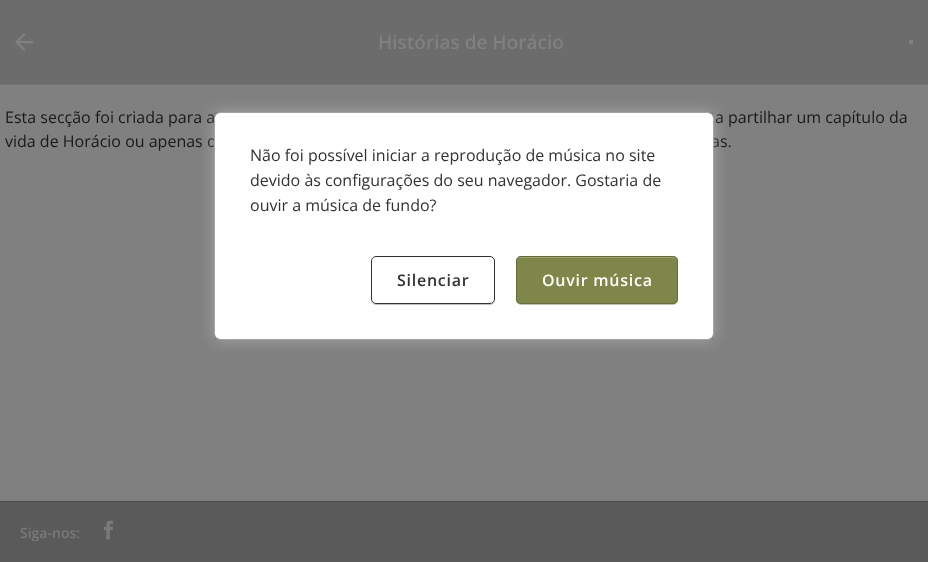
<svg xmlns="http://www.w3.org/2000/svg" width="928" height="562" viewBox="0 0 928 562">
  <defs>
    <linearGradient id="g1" gradientUnits="userSpaceOnUse" x1="464" y1="0" x2="464" y2="501"><stop offset="0" stop-color="#7a7d7c"/><stop offset="1" stop-color="#7d7d7d"/></linearGradient>
    <clipPath id="clip1"><path d="M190 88H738V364H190ZM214 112H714V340H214Z" clip-rule="evenodd"/></clipPath>
    <filter id="blur1" x="-50%" y="-200%" width="200%" height="500%"><feGaussianBlur stdDeviation="7.5"/></filter>
    <clipPath id="clip2"><path d="M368 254H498V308H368ZM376 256H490C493 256 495 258 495 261V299C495 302 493 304 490 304H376C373 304 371 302 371 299V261C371 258 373 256 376 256Z" clip-rule="evenodd"/></clipPath>
    <filter id="blur2" x="-50%" y="-200%" width="200%" height="500%"><feGaussianBlur stdDeviation="0.5"/></filter>
  </defs>
  <rect width="100%" height="100%" fill="#5a5a5a"/>
  <rect x="0" y="497" width="928" height="4" fill="url(#g1)"/>
  <path d="M0 0H928V497C928 499 926 501 924 501H4C2 501 0 499 0 497Z" fill="#808080"/>
  <rect x="0" y="0" width="928" height="84" fill="#6c6c6c"/>
  <rect x="0" y="84" width="928" height="1" fill="#737373"/>
  <image x="15" y="33" width="18" height="18" href="img1.png"/>
  <text x="378" y="49" font-family="Open Sans" font-size="19" font-weight="600" fill="#808080">Histórias de Horácio</text>
  <rect x="909" y="40" width="4" height="4" fill="#808080"/>
  <text x="5" y="123" font-family="Open Sans" font-size="16" fill="#191919">Esta secção foi criada para a</text>
  <text x="715" y="123" font-family="Open Sans" font-size="16" fill="#191919">a partilhar um capítulo da</text>
  <text x="5" y="147" font-family="Open Sans" font-size="16" fill="#191919">vida de Horácio ou apenas d</text>
  <text x="711" y="147" font-family="Open Sans" font-size="16" fill="#191919">as.</text>
  <g clip-path="url(#clip1)">
    <rect x="214" y="112" width="500" height="228" fill="#ffffff" fill-opacity="0.3" filter="url(#blur1)"/>
  </g>
  <rect x="215" y="113" width="498" height="226" rx="5" fill="#ffffff"/>
  <path d="M221 115H709C711 115 712 116 713 117C712 114 710 113 708 113H220C217 113 215 115 215 118V334C215 335 215 336 216 337V120C216 117 218 115 221 115Z" fill="#ffffff" fill-opacity="0.3"/>
  <rect x="214.5" y="112.5" width="499" height="227" rx="5.5" fill="none" stroke="#a5a5a5"/>
  <text x="250" y="161" font-family="Open Sans" font-size="16" fill="#323232">Não foi possível iniciar a reprodução de música no site</text>
  <text x="250" y="186" font-family="Open Sans" font-size="16" fill="#323232">devido às configurações do seu navegador. Gostaria de</text>
  <text x="250" y="211" font-family="Open Sans" font-size="16" fill="#323232">ouvir a música de fundo?</text>
  <g clip-path="url(#clip2)">
    <rect x="371" y="257" width="124" height="48" rx="5" fill="#000000" fill-opacity="0.25" filter="url(#blur2)"/>
  </g>
  <path d="M376 258H490C492 258 494 260 494 262C494 252 474 257 471 257H395C392 257 372 252 372 262C372 260 374 258 376 258Z" fill="#fcfeff"/>
  <rect x="371.5" y="256.5" width="123" height="47" rx="4.5" fill="none" stroke="#323232"/>
  <text x="397" y="286" font-family="Open Sans" font-size="16" font-weight="600" letter-spacing="0.75" fill="#323232">Silenciar</text>
  <rect x="516" y="257" width="162" height="48" rx="5" fill="#000000" fill-opacity="0.25" filter="url(#blur2)"/>
  <rect x="516" y="256" width="162" height="48" rx="5" fill="#7e8749"/>
  <path d="M521 258H673C675 258 677 260 677 262C677 260 676 258 674 257H520C518 258 517 260 517 262C517 260 519 258 521 258Z" fill="#9ca477"/>
  <rect x="516.5" y="256.5" width="161" height="47" rx="4.5" fill="none" stroke="#656c3a"/>
  <text x="542" y="286" font-family="Open Sans" font-size="16" font-weight="600" letter-spacing="0.75" fill="#ffffff">Ouvir música</text>
  <rect x="0" y="501" width="928" height="1" fill="#4b4b4b"/>
  <text x="20" y="538" font-family="Open Sans" font-size="14" font-weight="600" fill="#797979">Siga-nos:</text>
  <image x="103" y="520" width="11" height="20" href="img2.png"/>
</svg>
